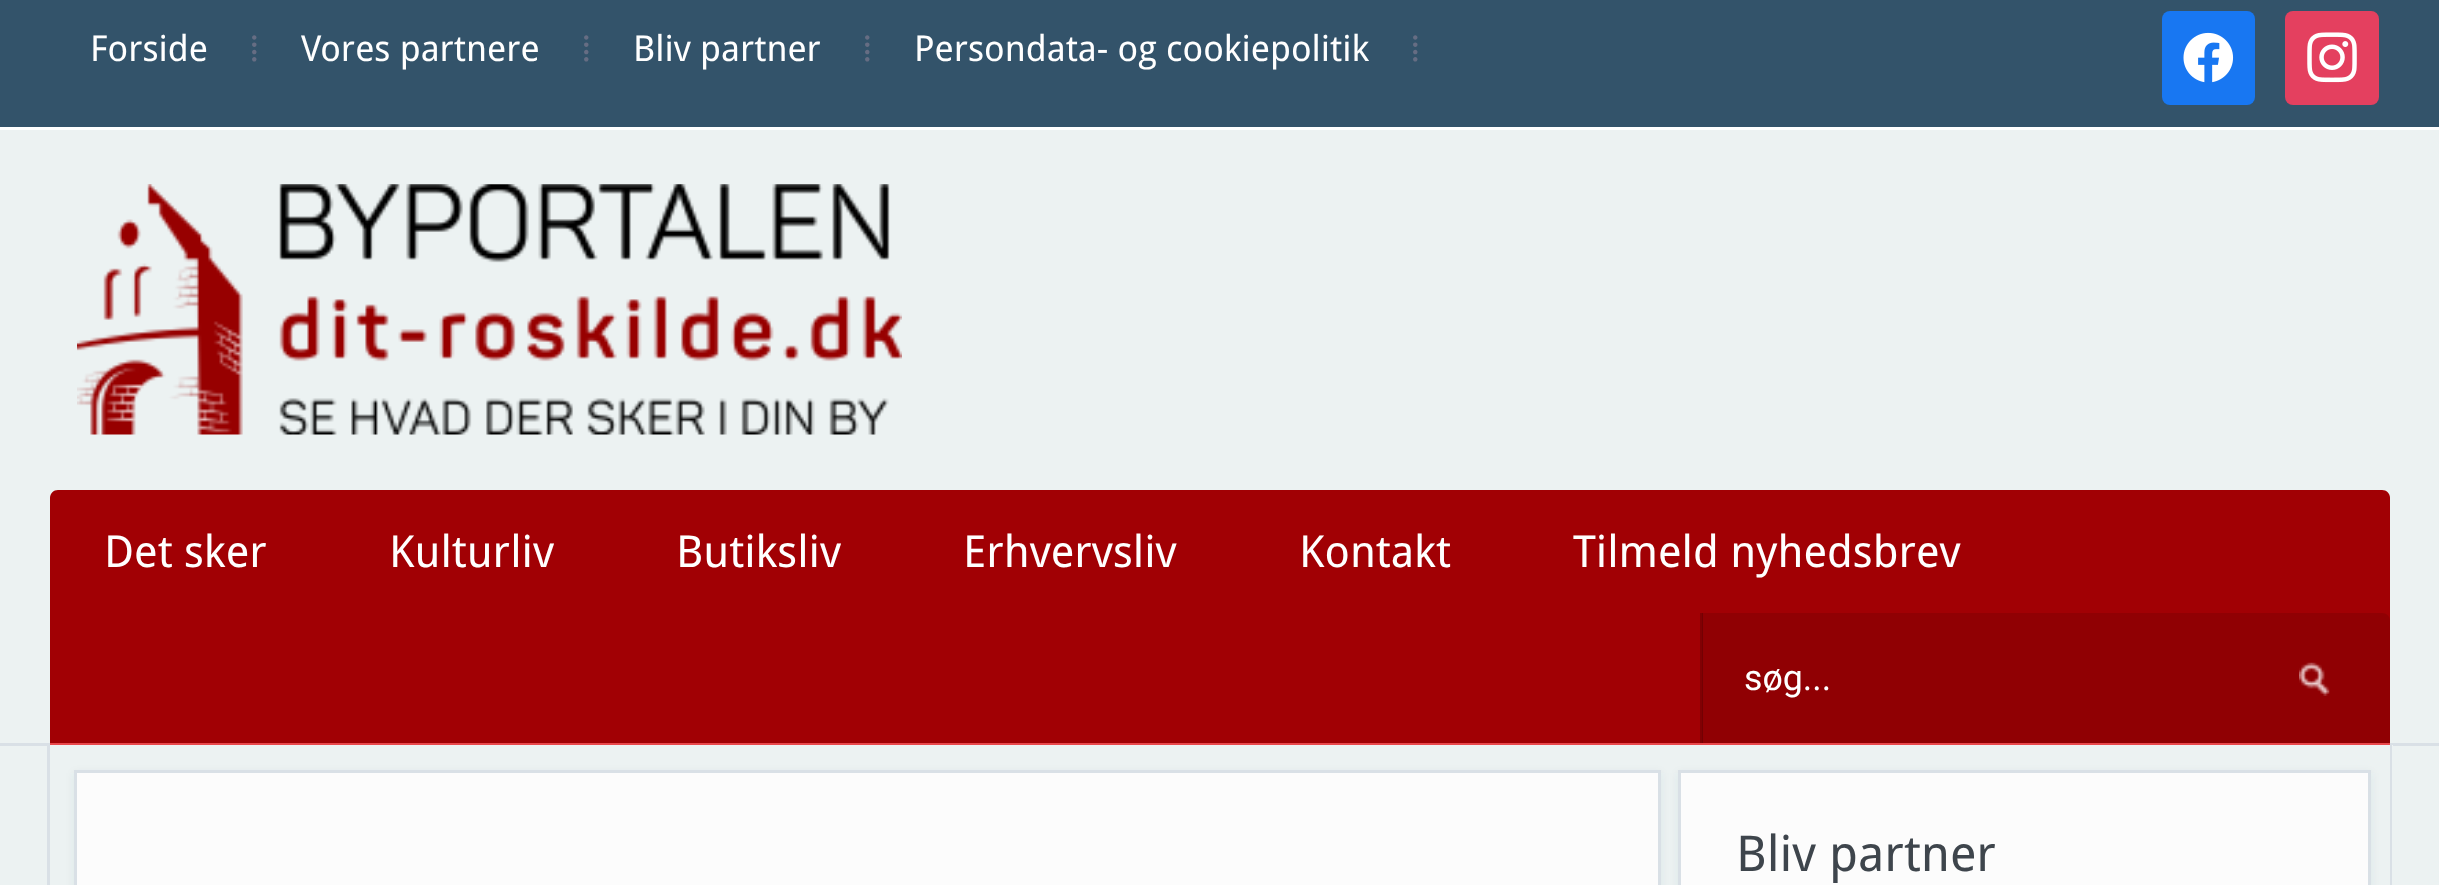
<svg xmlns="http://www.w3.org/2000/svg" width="2439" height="885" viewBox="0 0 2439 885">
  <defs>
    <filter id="blur1" x="-50%" y="-200%" width="200%" height="500%"><feGaussianBlur stdDeviation="4"/></filter>
  </defs>
  <rect width="100%" height="100%" fill="#ecf2f2"/>
  <rect x="0" y="743" width="2439" height="3" fill="#d9e0e6"/>
  <rect x="0" y="0" width="2439" height="127" fill="#33536a"/>
  <rect x="0" y="127" width="2439" height="3" fill="#ffffff"/>
  <text x="90" y="61" font-family="Droid Sans" font-size="35.75" fill="#ffffff">Forside</text>
  <text x="249" y="61" font-family="Liberation Serif" font-size="38" fill="#666d83">⁞</text>
  <text x="301" y="61" font-family="Droid Sans" font-size="35.75" fill="#ffffff">Vores partnere</text>
  <text x="581" y="61" font-family="Liberation Serif" font-size="38" fill="#666d83">⁞</text>
  <text x="633" y="61" font-family="Droid Sans" font-size="35.75" fill="#ffffff">Bliv partner</text>
  <text x="862" y="61" font-family="Liberation Serif" font-size="38" fill="#666d83">⁞</text>
  <text x="914" y="61" font-family="Droid Sans" font-size="35.75" fill="#ffffff">Persondata- og cookiepolitik</text>
  <text x="1410" y="61" font-family="Liberation Serif" font-size="38" fill="#666d83">⁞</text>
  <rect x="2162" y="11" width="93" height="94" rx="8" fill="#1877f2"/>
  <image x="2183" y="32" width="51" height="51" href="img1.png"/>
  <rect x="2285" y="11" width="94" height="94" rx="8" fill="#e4405f"/>
  <image x="2307" y="32" width="50" height="51" href="img2.png"/>
  <image x="77" y="184" width="825" height="251" href="img3.png"/>
  <path d="M58 490H2382C2386.5 490 2390 493.5 2390 498V745H50V498C50 493.5 53.5 490 58 490Z" fill="#a10004"/>
  <rect x="50" y="743" width="2340" height="2" fill="#e9484c"/>
  <text x="104" y="567" font-family="Droid Sans" font-size="44" fill="#ffffff">Det sker</text>
  <text x="389" y="567" font-family="Droid Sans" font-size="44" fill="#ffffff">Kulturliv</text>
  <text x="676" y="567" font-family="Droid Sans" font-size="44" fill="#ffffff">Butiksliv</text>
  <text x="963" y="567" font-family="Droid Sans" font-size="44" fill="#ffffff">Erhvervsliv</text>
  <text x="1299" y="567" font-family="Droid Sans" font-size="44" fill="#ffffff">Kontakt</text>
  <text x="1573" y="567" font-family="Droid Sans" font-size="44" fill="#ffffff">Tilmeld nyhedsbrev</text>
  <rect x="1700" y="613" width="3" height="130" fill="#810003"/>
  <path d="M1702 613H2382C2386.5 613 2390 616.5 2390 621V743H1702Z" fill="#000000" fill-opacity="0.1"/>
  <text x="1744" y="690" font-family="Roboto" font-size="35.75" fill="#ffffff">søg...</text>
  <image x="2299" y="662" width="31" height="34" href="img4.png"/>
  <rect x="50" y="745" width="2343" height="1" fill="#eef1f3"/>
  <path d="M47 745H2392V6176C2392 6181 2389 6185 2384 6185H55C50 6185 47 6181 47 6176ZM50 745H2390V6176C2390 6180 2387 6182 2384 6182H55C52 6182 50 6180 50 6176Z" fill="#d9e0e6" fill-rule="evenodd"/>
  <rect x="74" y="773" width="1587" height="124" fill="#4a5f74" fill-opacity="0.08" filter="url(#blur1)"/>
  <rect x="75.5" y="771.5" width="1584" height="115" fill="#fcfcfc" stroke="#d9e0e6" stroke-width="3"/>
  <rect x="1678" y="773" width="693" height="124" fill="#4a5f74" fill-opacity="0.08" filter="url(#blur1)"/>
  <rect x="1679.5" y="771.5" width="690" height="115" fill="#fcfcfc" stroke="#d9e0e6" stroke-width="3"/>
  <text x="1736" y="871" font-family="Droid Sans" font-size="49.5" fill="#3e454c">Bliv partner</text>
</svg>
